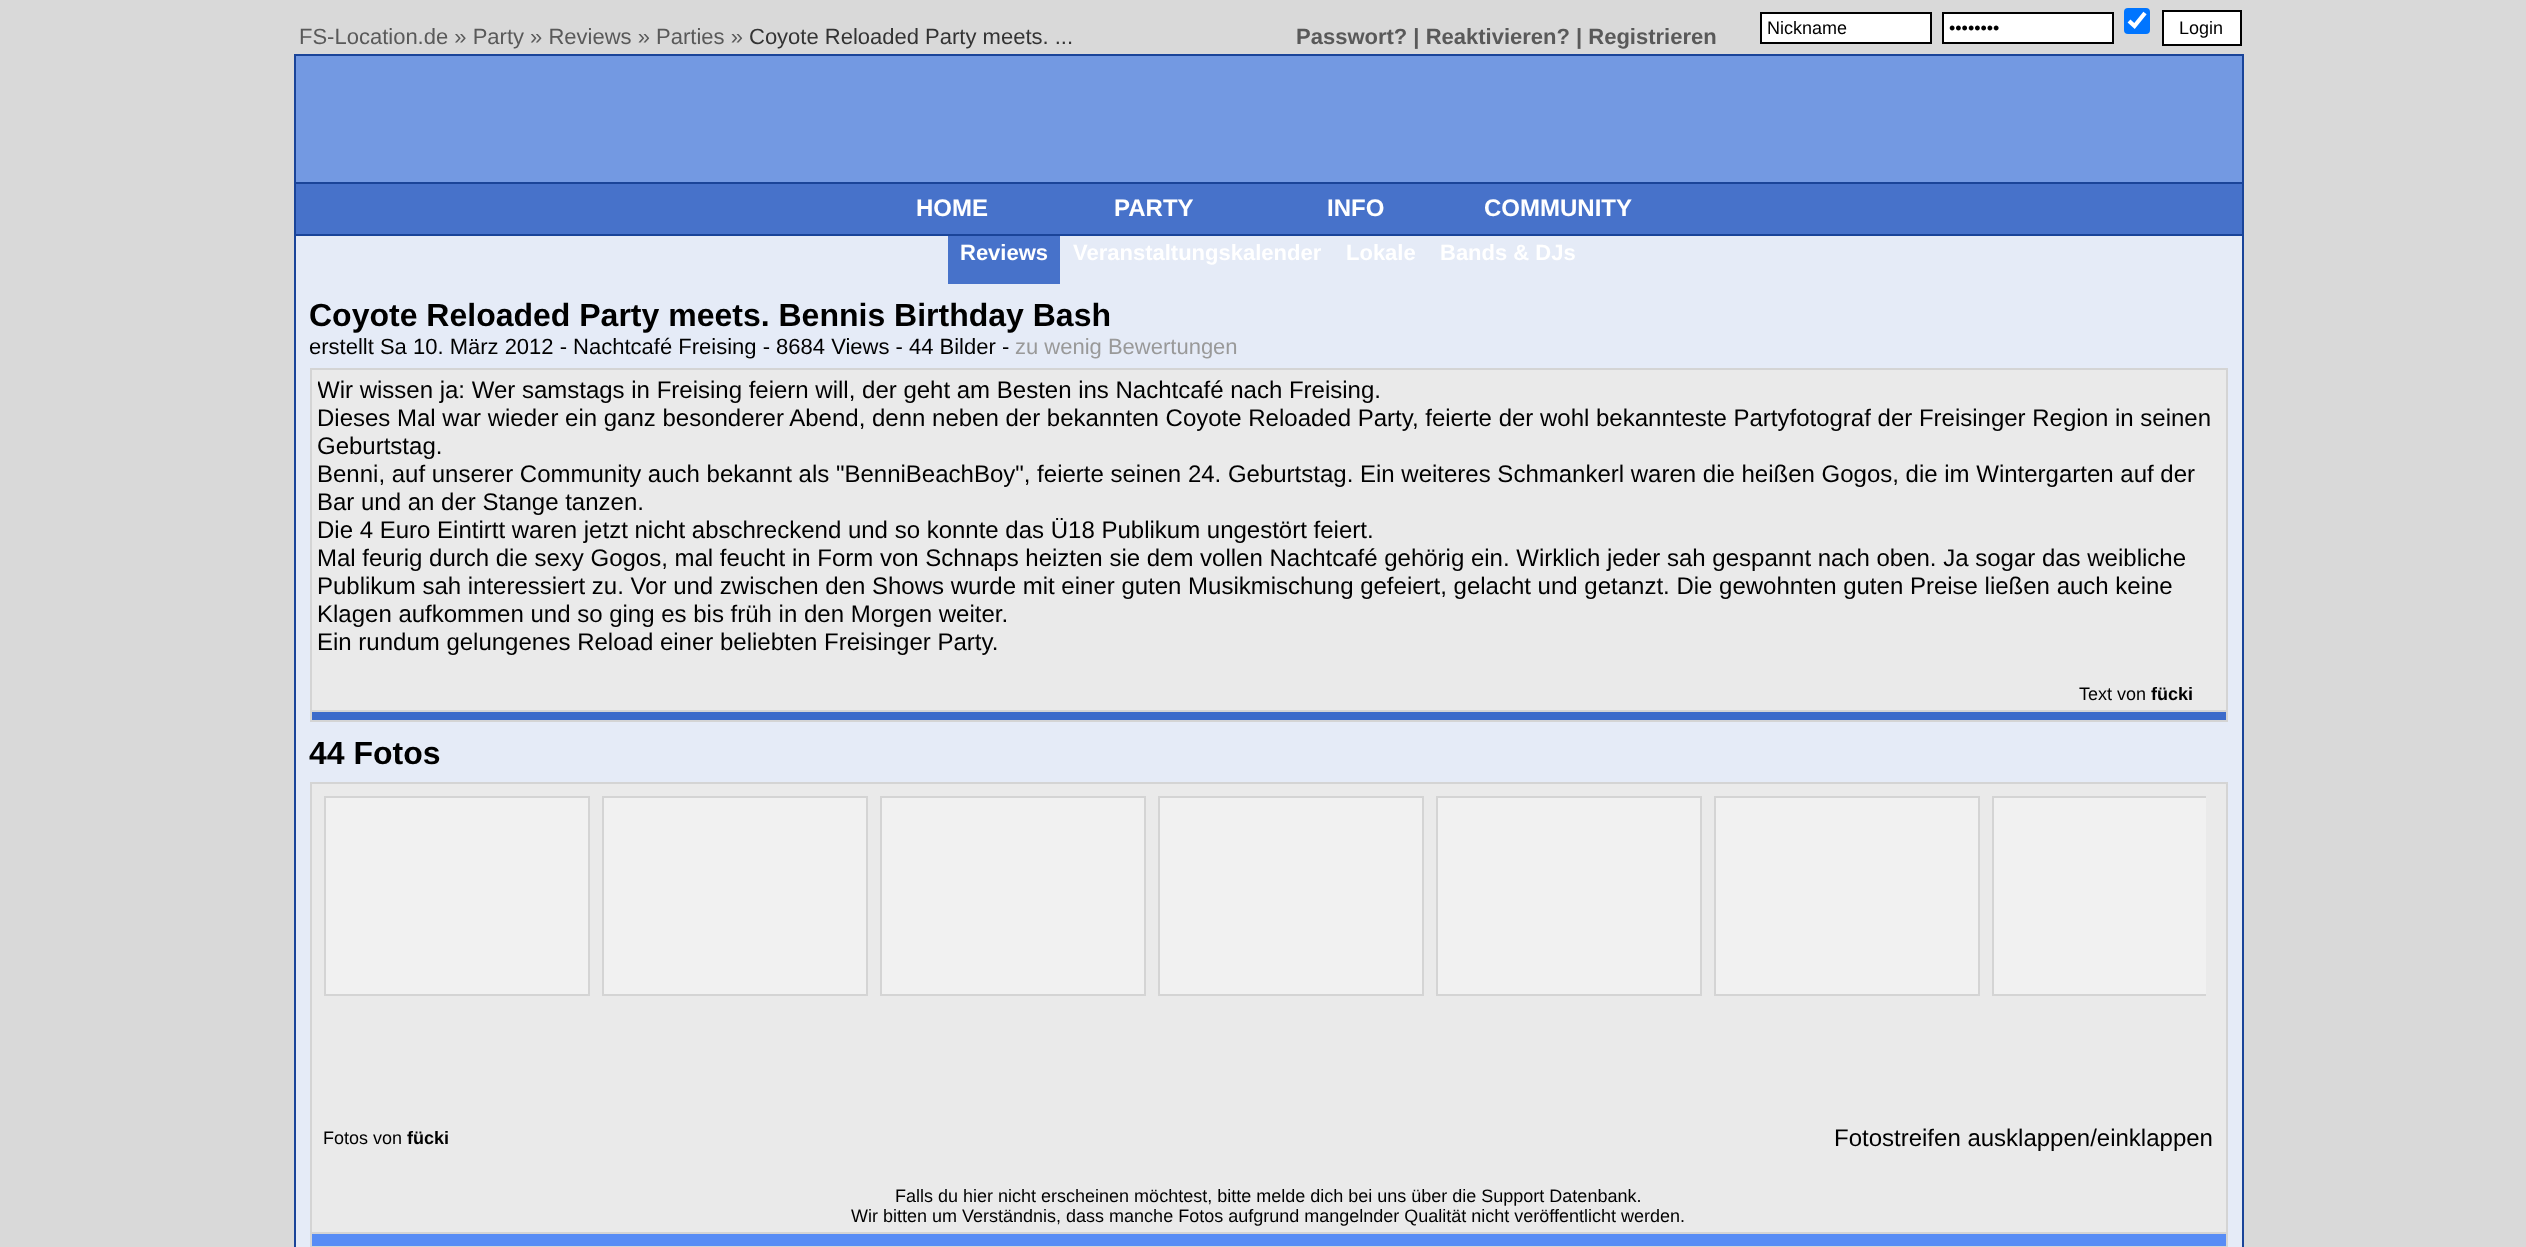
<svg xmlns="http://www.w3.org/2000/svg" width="2526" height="1247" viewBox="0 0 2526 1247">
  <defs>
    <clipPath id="clip1"><rect x="318" y="376" width="1902" height="328"/></clipPath>
  </defs>
  <rect width="100%" height="100%" fill="#d9d9d9"/>
  <text x="299" y="44" font-family="Liberation Sans" font-size="22" fill="#595959">FS-Location.de » Party » Reviews » Parties »</text>
  <text x="749" y="44" font-family="Liberation Sans" font-size="22" fill="#333333">Coyote Reloaded Party meets. ...</text>
  <text x="1296" y="44" font-family="Liberation Sans" font-size="22" font-weight="bold" fill="#595959">Passwort? | Reaktivieren? | Registrieren</text>
  <rect x="1761" y="13" width="170" height="30" fill="#ffffff" stroke="#000000" stroke-width="2"/>
  <text x="1767" y="34" font-family="Liberation Sans" font-size="18" fill="#000000">Nickname</text>
  <rect x="1943" y="13" width="170" height="30" fill="#ffffff" stroke="#000000" stroke-width="2"/>
  <text x="1949" y="34" font-family="Liberation Sans" font-size="18" fill="#000000">••••••••</text>
  <rect x="2124" y="8" width="26" height="26" rx="4" fill="#0075ff"/>
  <path d="M2129 21L2134.5 26L2145 13" fill="none" stroke="#ffffff" stroke-width="4.2"/>
  <rect x="2163" y="11" width="78" height="34" fill="#ffffff" stroke="#000000" stroke-width="2"/>
  <text x="2179" y="34" font-family="Liberation Sans" font-size="18" fill="#000000">Login</text>
  <rect x="296" y="236" width="1946" height="1011" fill="#e5ebf7"/>
  <rect x="294" y="54" width="1950" height="2" fill="#1a4499"/>
  <rect x="2242" y="54" width="2" height="1193" fill="#1a4499"/>
  <rect x="294" y="54" width="2" height="1193" fill="#1a4499"/>
  <rect x="296" y="56" width="1946" height="126" fill="#7399e2"/>
  <rect x="296" y="184" width="1946" height="50" fill="#4772ca"/>
  <rect x="294" y="182" width="1950" height="2" fill="#1a4499"/>
  <rect x="294" y="234" width="1950" height="2" fill="#1a4499"/>
  <text x="916" y="216" font-family="Liberation Sans" font-size="24" font-weight="bold" fill="#ffffff">HOME</text>
  <text x="1114" y="216" font-family="Liberation Sans" font-size="24" font-weight="bold" fill="#ffffff">PARTY</text>
  <text x="1327" y="216" font-family="Liberation Sans" font-size="24" font-weight="bold" fill="#ffffff">INFO</text>
  <text x="1484" y="216" font-family="Liberation Sans" font-size="24" font-weight="bold" fill="#ffffff">COMMUNITY</text>
  <rect x="948" y="236" width="112" height="48" fill="#4772ca"/>
  <text x="960" y="260" font-family="Liberation Sans" font-size="22" font-weight="bold" fill="#ffffff">Reviews</text>
  <text x="1073" y="260" font-family="Liberation Sans" font-size="22" font-weight="bold" fill="#ffffff">Veranstaltungskalender</text>
  <text x="1346" y="260" font-family="Liberation Sans" font-size="22" font-weight="bold" fill="#ffffff">Lokale</text>
  <text x="1440" y="260" font-family="Liberation Sans" font-size="22" font-weight="bold" fill="#ffffff">Bands &amp; DJs</text>
  <text x="309" y="326" font-family="Liberation Sans" font-size="32" font-weight="bold" fill="#000000">Coyote Reloaded Party meets. Bennis Birthday Bash</text>
  <text x="309" y="354" font-family="Liberation Sans" font-size="22" fill="#000000">erstellt Sa 10. März 2012 - Nachtcafé Freising - 8684 Views - 44 Bilder -</text>
  <text x="1015" y="354" font-family="Liberation Sans" font-size="22" fill="#999999">zu wenig Bewertungen</text>
  <rect x="312" y="370" width="1914" height="340" fill="#eaeaea"/>
  <rect x="310" y="368" width="1918" height="2" fill="#d4d4d4"/>
  <rect x="310" y="710" width="1918" height="2" fill="#d4d4d4"/>
  <rect x="2226" y="710" width="2" height="12" fill="#d4d4d4"/>
  <rect x="2226" y="368" width="2" height="344" fill="#d4d4d4"/>
  <rect x="310" y="720" width="1918" height="2" fill="#d4d4d4"/>
  <rect x="310" y="710" width="2" height="12" fill="#d4d4d4"/>
  <rect x="310" y="368" width="2" height="344" fill="#d4d4d4"/>
  <g clip-path="url(#clip1)">
    <text x="317" y="398" font-family="Liberation Sans" font-size="24" fill="#000000">Wir wissen ja: Wer samstags in Freising feiern will, der geht am Besten ins Nachtcafé nach Freising.</text>
  </g>
  <text x="317" y="426" font-family="Liberation Sans" font-size="24" fill="#000000">Dieses Mal war wieder ein ganz besonderer Abend, denn neben der bekannten Coyote Reloaded Party, feierte der wohl bekannteste Partyfotograf der Freisinger Region in seinen</text>
  <text x="317" y="454" font-family="Liberation Sans" font-size="24" fill="#000000">Geburtstag.</text>
  <text x="317" y="482" font-family="Liberation Sans" font-size="24" fill="#000000">Benni, auf unserer Community auch bekannt als "BenniBeachBoy", feierte seinen 24. Geburtstag. Ein weiteres Schmankerl waren die heißen Gogos, die im Wintergarten auf der</text>
  <text x="317" y="510" font-family="Liberation Sans" font-size="24" fill="#000000">Bar und an der Stange tanzen.</text>
  <text x="317" y="538" font-family="Liberation Sans" font-size="24" fill="#000000">Die 4 Euro Eintirtt waren jetzt nicht abschreckend und so konnte das Ü18 Publikum ungestört feiert.</text>
  <text x="317" y="566" font-family="Liberation Sans" font-size="24" fill="#000000">Mal feurig durch die sexy Gogos, mal feucht in Form von Schnaps heizten sie dem vollen Nachtcafé gehörig ein. Wirklich jeder sah gespannt nach oben. Ja sogar das weibliche</text>
  <text x="317" y="594" font-family="Liberation Sans" font-size="24" fill="#000000">Publikum sah interessiert zu. Vor und zwischen den Shows wurde mit einer guten Musikmischung gefeiert, gelacht und getanzt. Die gewohnten guten Preise ließen auch keine</text>
  <text x="317" y="622" font-family="Liberation Sans" font-size="24" fill="#000000">Klagen aufkommen und so ging es bis früh in den Morgen weiter.</text>
  <text x="317" y="650" font-family="Liberation Sans" font-size="24" fill="#000000">Ein rundum gelungenes Reload einer beliebten Freisinger Party.</text>
  <text x="2079" y="700" font-family="Liberation Sans" font-size="18" fill="#000000">Text von</text>
  <text x="2151" y="700" font-family="Liberation Sans" font-size="18" font-weight="bold" fill="#000000">fücki</text>
  <rect x="312" y="712" width="1914" height="8" fill="#3b6aca"/>
  <text x="309" y="764" font-family="Liberation Sans" font-size="32" font-weight="bold" fill="#000000">44 Fotos</text>
  <rect x="312" y="784" width="1914" height="448" fill="#eaeaea"/>
  <rect x="310" y="782" width="1918" height="2" fill="#d4d4d4"/>
  <rect x="2226" y="1232" width="2" height="15" fill="#d4d4d4"/>
  <rect x="2226" y="782" width="2" height="452" fill="#d4d4d4"/>
  <rect x="310" y="1246" width="1918" height="1" fill="#d4d4d4"/>
  <rect x="310" y="1232" width="2" height="15" fill="#d4d4d4"/>
  <rect x="310" y="1232" width="1918" height="2" fill="#d4d4d4"/>
  <rect x="310" y="782" width="2" height="452" fill="#d4d4d4"/>
  <rect x="326" y="798" width="262" height="196" fill="#f1f1f1"/>
  <rect x="324" y="796" width="266" height="2" fill="#d4d4d4"/>
  <rect x="588" y="796" width="2" height="200" fill="#d4d4d4"/>
  <rect x="324" y="994" width="266" height="2" fill="#d4d4d4"/>
  <rect x="324" y="796" width="2" height="200" fill="#d4d4d4"/>
  <rect x="604" y="798" width="262" height="196" fill="#f1f1f1"/>
  <rect x="602" y="796" width="266" height="2" fill="#d4d4d4"/>
  <rect x="866" y="796" width="2" height="200" fill="#d4d4d4"/>
  <rect x="602" y="994" width="266" height="2" fill="#d4d4d4"/>
  <rect x="602" y="796" width="2" height="200" fill="#d4d4d4"/>
  <rect x="882" y="798" width="262" height="196" fill="#f1f1f1"/>
  <rect x="880" y="796" width="266" height="2" fill="#d4d4d4"/>
  <rect x="1144" y="796" width="2" height="200" fill="#d4d4d4"/>
  <rect x="880" y="994" width="266" height="2" fill="#d4d4d4"/>
  <rect x="880" y="796" width="2" height="200" fill="#d4d4d4"/>
  <rect x="1160" y="798" width="262" height="196" fill="#f1f1f1"/>
  <rect x="1158" y="796" width="266" height="2" fill="#d4d4d4"/>
  <rect x="1422" y="796" width="2" height="200" fill="#d4d4d4"/>
  <rect x="1158" y="994" width="266" height="2" fill="#d4d4d4"/>
  <rect x="1158" y="796" width="2" height="200" fill="#d4d4d4"/>
  <rect x="1438" y="798" width="262" height="196" fill="#f1f1f1"/>
  <rect x="1436" y="796" width="266" height="2" fill="#d4d4d4"/>
  <rect x="1700" y="796" width="2" height="200" fill="#d4d4d4"/>
  <rect x="1436" y="994" width="266" height="2" fill="#d4d4d4"/>
  <rect x="1436" y="796" width="2" height="200" fill="#d4d4d4"/>
  <rect x="1716" y="798" width="262" height="196" fill="#f1f1f1"/>
  <rect x="1714" y="796" width="266" height="2" fill="#d4d4d4"/>
  <rect x="1978" y="796" width="2" height="200" fill="#d4d4d4"/>
  <rect x="1714" y="994" width="266" height="2" fill="#d4d4d4"/>
  <rect x="1714" y="796" width="2" height="200" fill="#d4d4d4"/>
  <rect x="1994" y="798" width="212" height="196" fill="#f1f1f1"/>
  <rect x="1992" y="796" width="214" height="2" fill="#d4d4d4"/>
  <rect x="1992" y="994" width="214" height="2" fill="#d4d4d4"/>
  <rect x="1992" y="796" width="2" height="200" fill="#d4d4d4"/>
  <text x="323" y="1144" font-family="Liberation Sans" font-size="18" fill="#000000">Fotos von</text>
  <text x="407" y="1144" font-family="Liberation Sans" font-size="18" font-weight="bold" fill="#000000">fücki</text>
  <text x="1834" y="1146" font-family="Liberation Sans" font-size="24" fill="#000000">Fotostreifen ausklappen/einklappen</text>
  <text x="895" y="1202" font-family="Liberation Sans" font-size="18" fill="#000000">Falls du hier nicht erscheinen möchtest, bitte melde dich bei uns über die Support Datenbank.</text>
  <text x="851" y="1222" font-family="Liberation Sans" font-size="18" fill="#000000">Wir bitten um Verständnis, dass manche Fotos aufgrund mangelnder Qualität nicht veröffentlicht werden.</text>
  <rect x="312" y="1234" width="1914" height="12" fill="#578cf5"/>
</svg>
